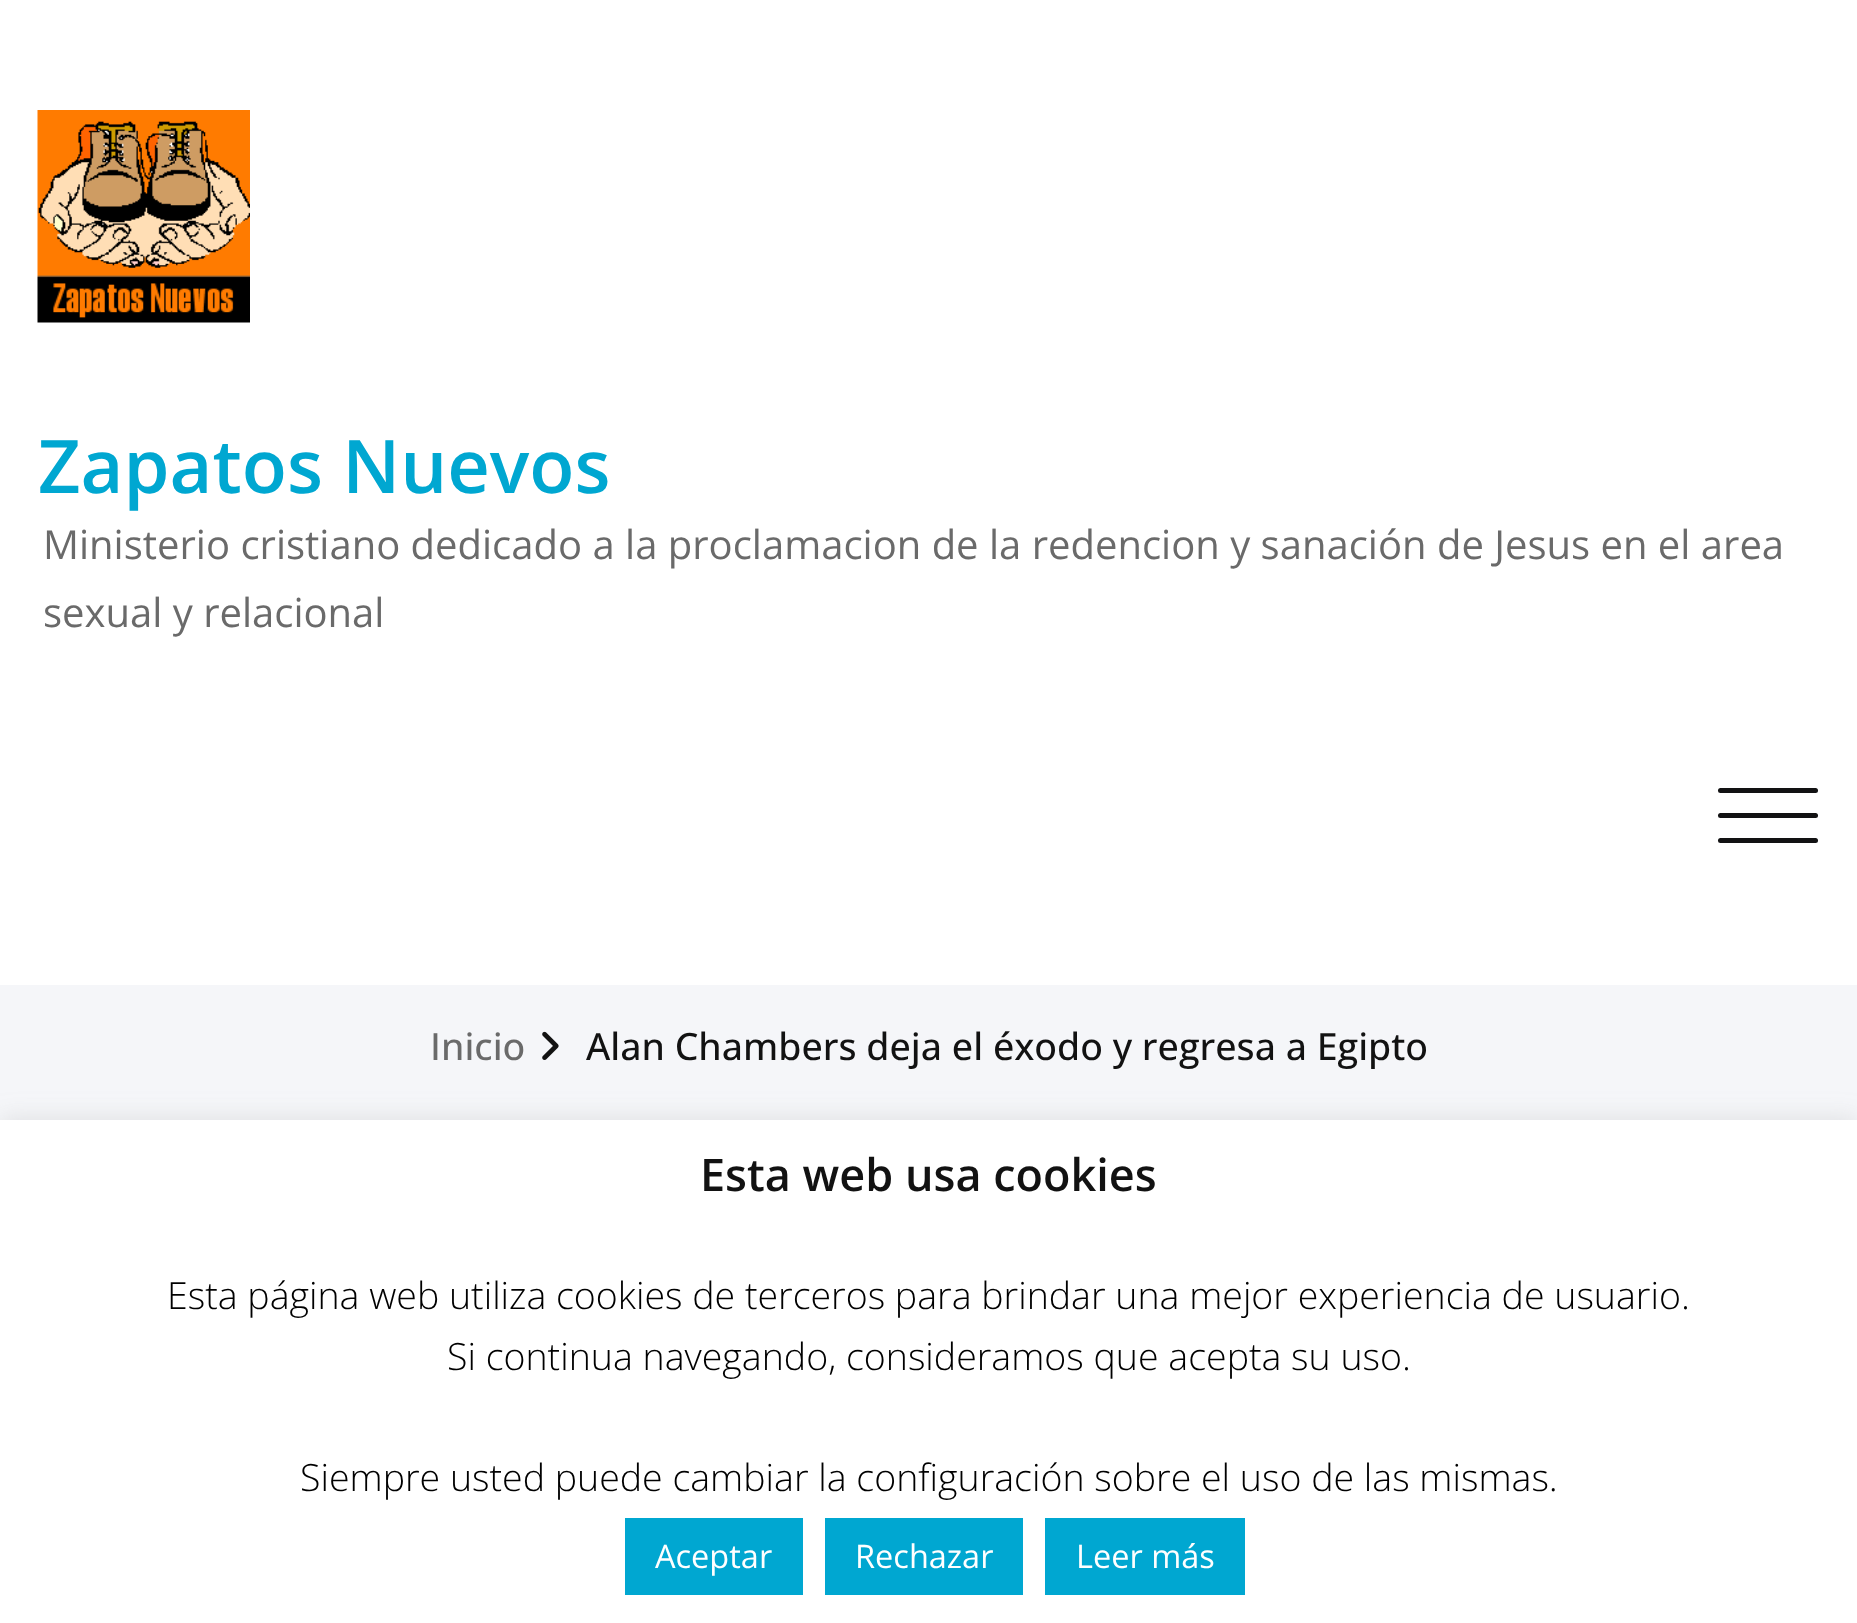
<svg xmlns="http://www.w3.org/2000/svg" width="1857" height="1623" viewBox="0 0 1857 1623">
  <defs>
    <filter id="blur1" x="-50%" y="-200%" width="200%" height="500%"><feGaussianBlur stdDeviation="12.5"/></filter>
  </defs>
  <rect width="100%" height="100%" fill="#ffffff"/>
  <image x="37" y="110" width="213" height="213" href="img1.png"/>
  <text x="38" y="493" font-family="Open Sans" font-size="74" font-weight="600" fill="#00a7d1">Zapatos Nuevos</text>
  <text x="43" y="559" font-family="Open Sans" font-size="40" fill="#6a6a6a">Ministerio cristiano dedicado a la proclamacion de la redencion y sanación de Jesus en el area</text>
  <text x="43" y="627" font-family="Open Sans" font-size="40" fill="#6a6a6a">sexual y relacional</text>
  <rect x="1718" y="788" width="100" height="5" rx="2.5" fill="#121213"/>
  <rect x="1718" y="813" width="100" height="5" rx="2.5" fill="#121213"/>
  <rect x="1718" y="838" width="100" height="5" rx="2.5" fill="#121213"/>
  <rect x="0" y="985" width="1857" height="135" fill="#f5f6f9"/>
  <text x="430" y="1060" font-family="Open Sans" font-size="37.5" font-weight="500" fill="#6a6a6a">Inicio</text>
  <image x="542" y="1031" width="17" height="29" href="img2.png"/>
  <text x="586" y="1060" font-family="Open Sans" font-size="37.5" font-weight="500" fill="#121212">Alan Chambers deja el éxodo y regresa a Egipto</text>
  <rect x="0" y="1118" width="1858" height="505" fill="#acabab" fill-opacity="0.3" filter="url(#blur1)"/>
  <rect x="0" y="1120" width="1857" height="503" fill="#ffffff"/>
  <text x="700" y="1191" font-family="Open Sans" font-size="45" font-weight="600" fill="#121212">Esta web usa cookies</text>
  <text x="167" y="1309" font-family="Open Sans" font-size="37.5" font-weight="300" fill="#000000">Esta página web utiliza cookies de terceros para brindar una mejor experiencia de usuario.</text>
  <text x="447" y="1370" font-family="Open Sans" font-size="37.5" font-weight="300" fill="#000000">Si continua navegando, consideramos que acepta su uso.</text>
  <text x="300" y="1491" font-family="Open Sans" font-size="37.5" font-weight="300" fill="#000000">Siempre usted puede cambiar la configuración sobre el uso de las mismas.</text>
  <rect x="625" y="1518" width="178" height="77" fill="#00a7d1"/>
  <text x="655" y="1568" font-family="Open Sans" font-size="32.5" fill="#ffffff">Aceptar</text>
  <rect x="825" y="1518" width="198" height="77" fill="#00a7d1"/>
  <text x="855" y="1568" font-family="Open Sans" font-size="32.5" fill="#ffffff">Rechazar</text>
  <rect x="1045" y="1518" width="200" height="77" fill="#00a7d1"/>
  <text x="1076" y="1568" font-family="Open Sans" font-size="32.5" fill="#ffffff">Leer más</text>
</svg>
